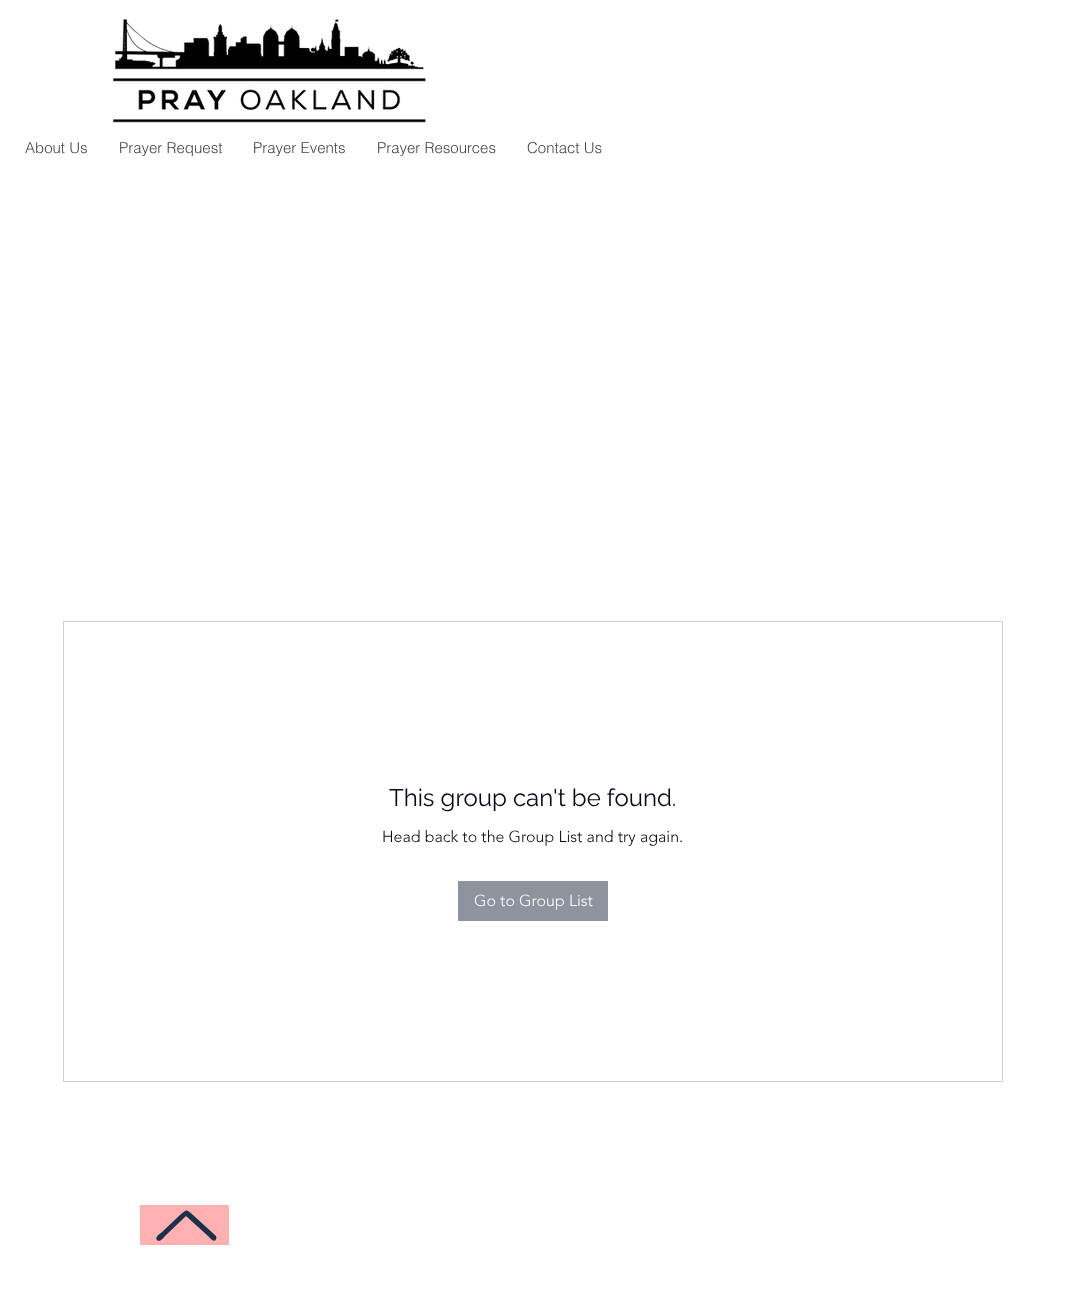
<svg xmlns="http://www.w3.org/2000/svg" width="1066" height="1300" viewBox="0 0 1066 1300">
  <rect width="100%" height="100%" fill="#ffffff"/>
  <image x="112" y="19" width="314" height="104" href="img1.png"/>
  <text x="25" y="153" font-family="helvetica" font-size="15" font-weight="300" fill="#444444">About Us</text>
  <text x="119" y="153" font-family="helvetica" font-size="15" font-weight="300" fill="#444444">Prayer Request</text>
  <text x="253" y="153" font-family="helvetica" font-size="15" font-weight="300" fill="#444444">Prayer Events</text>
  <text x="377" y="153" font-family="helvetica" font-size="15" font-weight="300" fill="#444444">Prayer Resources</text>
  <text x="527" y="153" font-family="helvetica" font-size="15" font-weight="300" fill="#444444">Contact Us</text>
  <rect x="63.5" y="621.5" width="939" height="460" fill="none" stroke="#cdced1"/>
  <text x="389" y="806" font-family="Raleway" font-size="24" fill="#040a18">This group can't be found.</text>
  <text x="382" y="842" font-family="'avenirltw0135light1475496'" font-size="16" font-weight="300" fill="#040a18">Head back to the Group List and try again.</text>
  <rect x="458" y="881" width="150" height="40" fill="#8f939e"/>
  <text x="474" y="906" font-family="'avenirltw0135light1475496'" font-size="16" font-weight="300" fill="#ffffff">Go to Group List</text>
  <rect x="140" y="1205" width="89" height="40" fill="#ffb0b0"/>
  <path d="M216 1236L193 1215C186 1209 187 1209 180 1215L162 1232C161 1233 154 1237 157 1240C160 1243 164 1237 165 1236L186 1216L208 1236C209 1237 215 1244 216 1239C217 1238 216 1237 216 1236Z" fill="#1a314b"/>
</svg>
